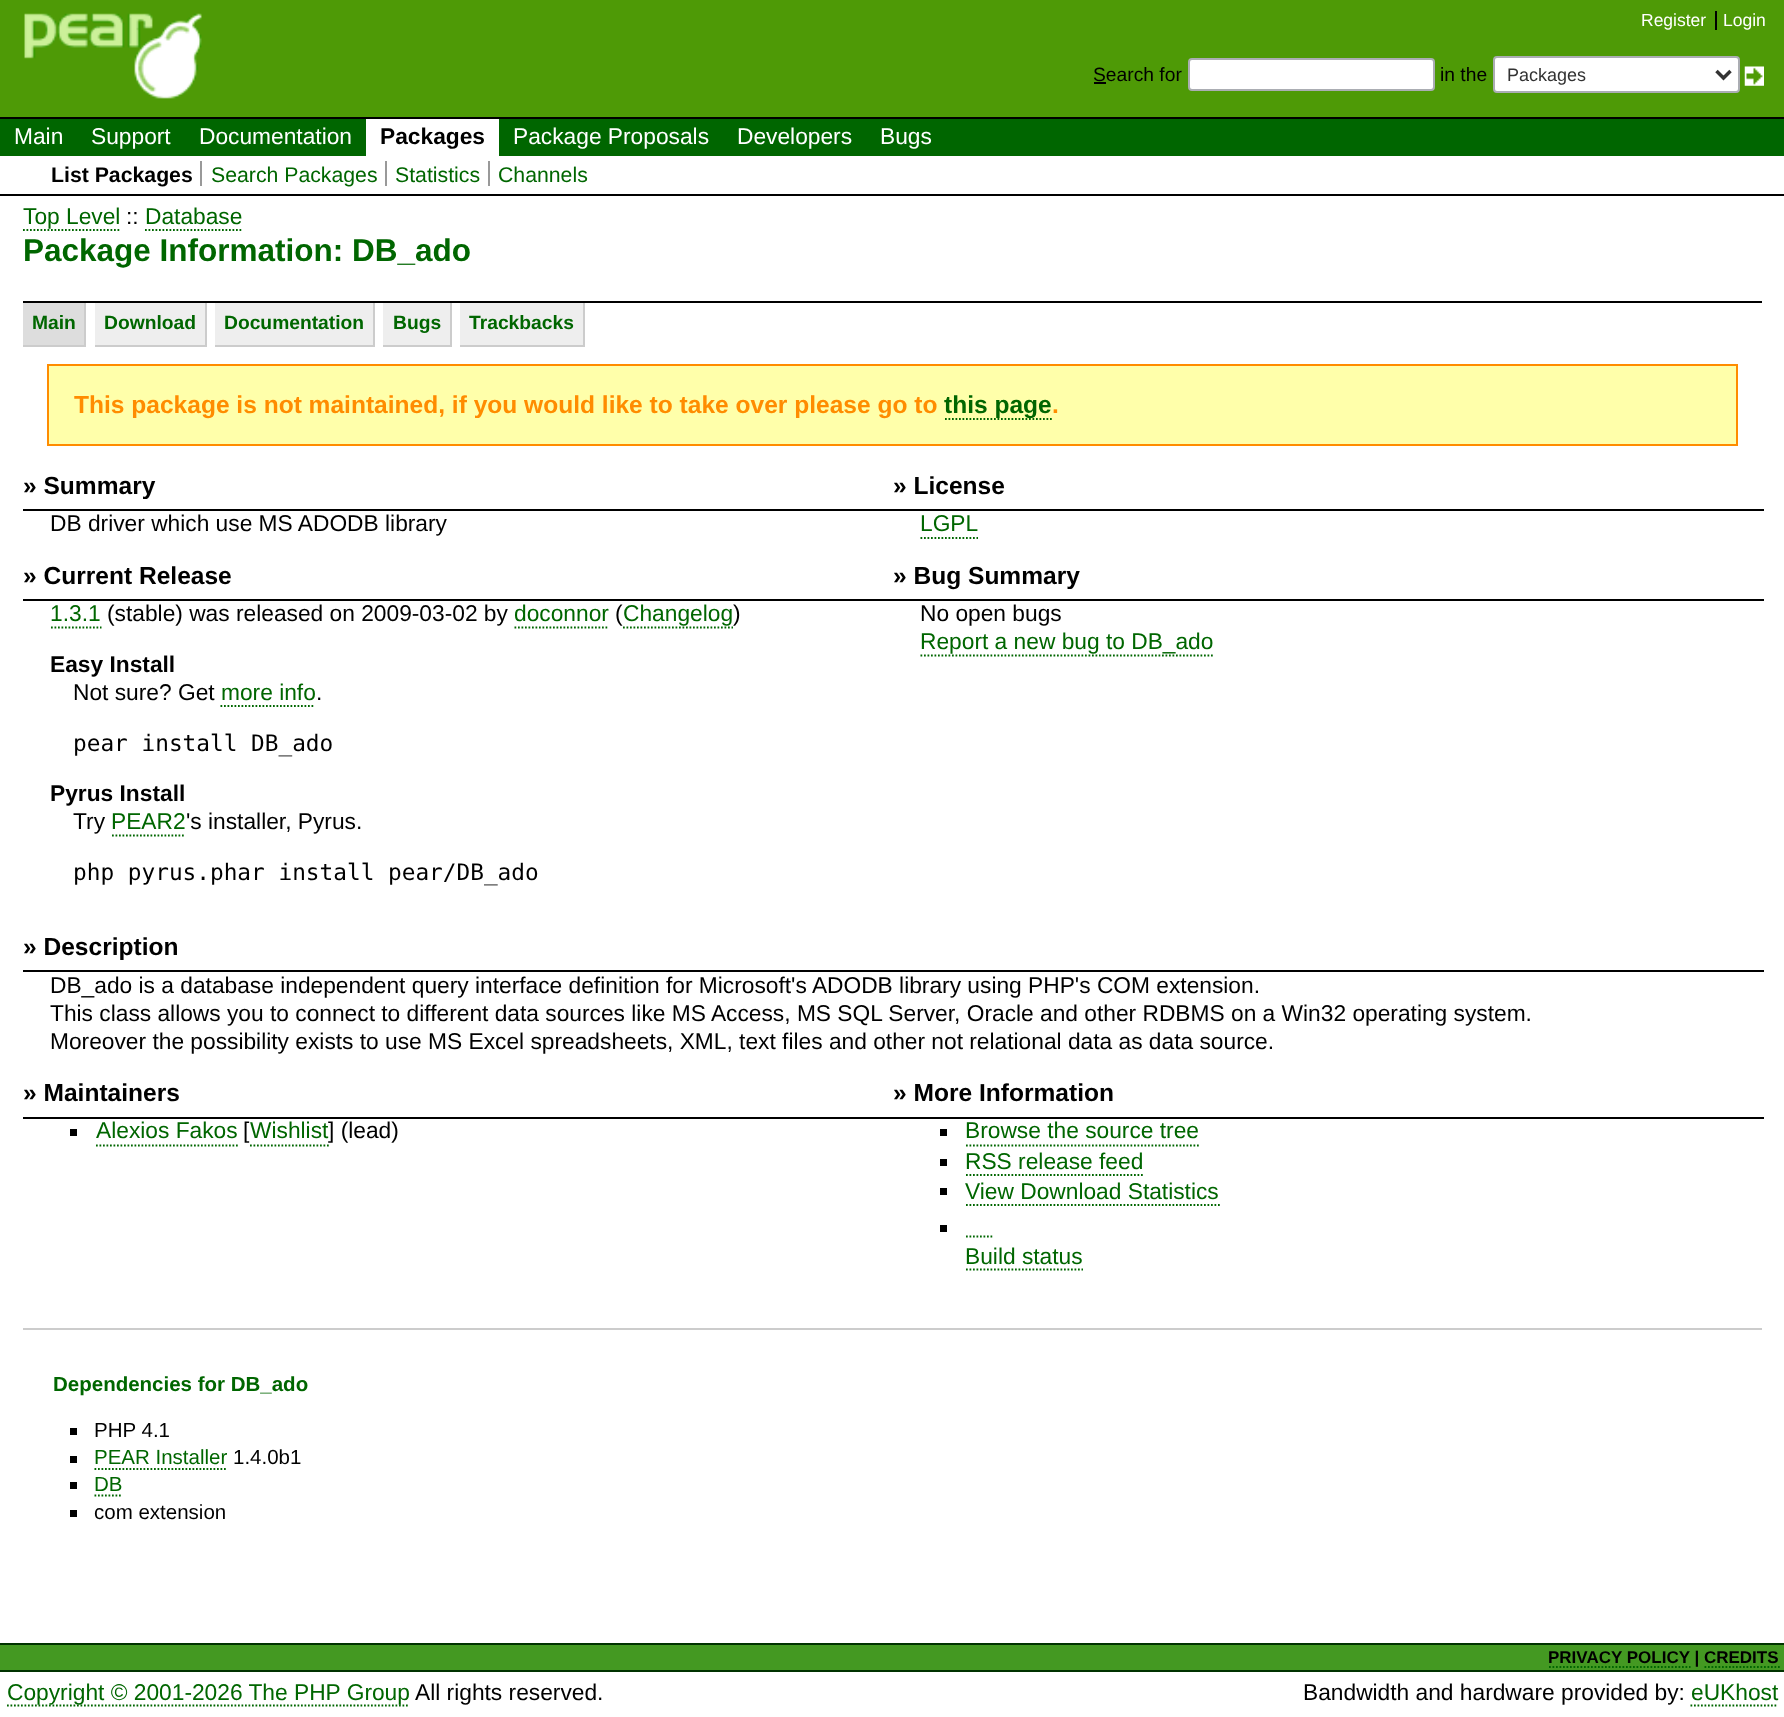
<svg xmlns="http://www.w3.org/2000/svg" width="1784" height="1717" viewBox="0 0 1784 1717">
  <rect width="100%" height="100%" fill="#ffffff"/>
  <rect x="0" y="0" width="1784" height="117" fill="#4e9a06"/>
  <image x="24" y="13" width="178" height="86" href="img1.png"/>
  <text x="1641" y="26" font-family="Liberation Sans" font-size="17.5" fill="#ffffff">Register</text>
  <rect x="1715" y="11" width="2" height="19" fill="#000000"/>
  <text x="1723" y="26" font-family="Liberation Sans" font-size="17.5" fill="#ffffff">Login</text>
  <text x="1093" y="81" font-family="Liberation Sans" font-size="19.25" fill="#000000">Search for</text>
  <rect x="1094" y="82" width="12" height="2" fill="#000000"/>
  <rect x="1189" y="59" width="245" height="31" rx="3" fill="#ffffff" stroke="#abadb3" stroke-width="2"/>
  <text x="1440" y="81" font-family="Liberation Sans" font-size="19.25" fill="#000000">in the</text>
  <rect x="1494" y="57" width="245" height="35" rx="3" fill="#ffffff" stroke="#abadb3" stroke-width="2"/>
  <path d="M1716.5 71L1723.5 78L1730.5 71" fill="none" stroke="#333333" stroke-width="3.5"/>
  <text x="1507" y="81" font-family="Liberation Sans" font-size="18" fill="#333333">Packages</text>
  <image x="1744" y="66" width="20" height="20" href="img2.png"/>
  <rect x="0" y="119" width="1784" height="37" fill="#006600"/>
  <rect x="0" y="117" width="1784" height="2" fill="#000000"/>
  <text x="14" y="144" font-family="Liberation Sans" font-size="22.75" fill="#ffffff">Main</text>
  <text x="91" y="144" font-family="Liberation Sans" font-size="22.75" fill="#ffffff">Support</text>
  <text x="199" y="144" font-family="Liberation Sans" font-size="22.75" fill="#ffffff">Documentation</text>
  <rect x="366" y="119" width="133" height="37" fill="#ffffff"/>
  <text x="380" y="144" font-family="Liberation Sans" font-size="22.75" font-weight="bold" fill="#000000">Packages</text>
  <text x="513" y="144" font-family="Liberation Sans" font-size="22.75" fill="#ffffff">Package Proposals</text>
  <text x="737" y="144" font-family="Liberation Sans" font-size="22.75" fill="#ffffff">Developers</text>
  <text x="880" y="144" font-family="Liberation Sans" font-size="22.75" fill="#ffffff">Bugs</text>
  <rect x="0" y="194" width="1784" height="2" fill="#000000"/>
  <text x="51" y="182" font-family="Liberation Sans" font-size="21.25" font-weight="bold" fill="#000000">List Packages</text>
  <text x="211" y="182" font-family="Liberation Sans" font-size="21.25" fill="#006600">Search Packages</text>
  <rect x="200" y="161" width="2" height="25" fill="#999999"/>
  <text x="395" y="182" font-family="Liberation Sans" font-size="21.25" fill="#006600">Statistics</text>
  <rect x="385" y="161" width="2" height="25" fill="#999999"/>
  <text x="498" y="182" font-family="Liberation Sans" font-size="21.25" fill="#006600">Channels</text>
  <rect x="488" y="161" width="2" height="25" fill="#999999"/>
  <text x="23" y="224" font-family="Liberation Sans" font-size="22.75" fill="#006600">Top Level</text>
  <path d="M23 230H121" fill="none" stroke="#006600" stroke-width="1.8" stroke-dasharray="1.75 1.75"/>
  <text x="126" y="224" font-family="Liberation Sans" font-size="22.75" fill="#000000">::</text>
  <text x="145" y="224" font-family="Liberation Sans" font-size="22.75" fill="#006600">Database</text>
  <path d="M145 230H243" fill="none" stroke="#006600" stroke-width="1.8" stroke-dasharray="1.75 1.75"/>
  <text x="23" y="261" font-family="Liberation Sans" font-size="31.5" font-weight="bold" fill="#006600">Package Information: DB_ado</text>
  <rect x="23" y="301" width="1739" height="2" fill="#000000"/>
  <rect x="23" y="303" width="61" height="42" fill="#dddddd"/>
  <rect x="84" y="303" width="2" height="44" fill="#cccccc"/>
  <rect x="23" y="345" width="63" height="2" fill="#cccccc"/>
  <text x="32" y="329" font-family="Liberation Sans" font-size="19.25" font-weight="bold" fill="#006600">Main</text>
  <rect x="95" y="303" width="110" height="42" fill="#eeeeee"/>
  <rect x="205" y="303" width="2" height="44" fill="#cccccc"/>
  <rect x="95" y="345" width="112" height="2" fill="#cccccc"/>
  <text x="104" y="329" font-family="Liberation Sans" font-size="19.25" font-weight="bold" fill="#006600">Download</text>
  <rect x="215" y="303" width="158" height="42" fill="#eeeeee"/>
  <rect x="373" y="303" width="2" height="44" fill="#cccccc"/>
  <rect x="215" y="345" width="160" height="2" fill="#cccccc"/>
  <text x="224" y="329" font-family="Liberation Sans" font-size="19.25" font-weight="bold" fill="#006600">Documentation</text>
  <rect x="383" y="303" width="67" height="42" fill="#eeeeee"/>
  <rect x="450" y="303" width="2" height="44" fill="#cccccc"/>
  <rect x="383" y="345" width="69" height="2" fill="#cccccc"/>
  <text x="393" y="329" font-family="Liberation Sans" font-size="19.25" font-weight="bold" fill="#006600">Bugs</text>
  <rect x="460" y="303" width="123" height="42" fill="#eeeeee"/>
  <rect x="583" y="303" width="2" height="44" fill="#cccccc"/>
  <rect x="460" y="345" width="125" height="2" fill="#cccccc"/>
  <text x="469" y="329" font-family="Liberation Sans" font-size="19.25" font-weight="bold" fill="#006600">Trackbacks</text>
  <rect x="48" y="365" width="1689" height="80" fill="#ffffaa" stroke="#ff8c00" stroke-width="2"/>
  <text x="74" y="413" font-family="Liberation Sans" font-size="24.55" font-weight="bold" fill="#ff8c00">This package is not maintained, if you would like to take over please go to</text>
  <path d="M945 419H1052" fill="none" stroke="#006600" stroke-width="1.8" stroke-dasharray="1.75 1.75"/>
  <text x="944" y="413" font-family="Liberation Sans" font-size="24.55" font-weight="bold" fill="#006600">this page</text>
  <text x="1052" y="413" font-family="Liberation Sans" font-size="24.55" font-weight="bold" fill="#ff8c00">.</text>
  <text x="23" y="494" font-family="Liberation Sans" font-size="24.55" font-weight="bold" fill="#000000">» Summary</text>
  <rect x="23" y="509" width="1741" height="2" fill="#000000"/>
  <text x="893" y="494" font-family="Liberation Sans" font-size="24.55" font-weight="bold" fill="#000000">» License</text>
  <text x="50" y="531" font-family="Liberation Sans" font-size="22.75" fill="#000000">DB driver which use MS ADODB library</text>
  <text x="920" y="531" font-family="Liberation Sans" font-size="22.75" fill="#006600">LGPL</text>
  <path d="M920.5 538H978" fill="none" stroke="#006600" stroke-width="1.8" stroke-dasharray="1.75 1.75"/>
  <text x="23" y="584" font-family="Liberation Sans" font-size="24.55" font-weight="bold" fill="#000000">» Current Release</text>
  <rect x="23" y="599" width="1741" height="2" fill="#000000"/>
  <text x="893" y="584" font-family="Liberation Sans" font-size="24.55" font-weight="bold" fill="#000000">» Bug Summary</text>
  <text x="50" y="621" font-family="Liberation Sans" font-size="22.75" fill="#006600">1.3.1</text>
  <path d="M51 627.5H101.5" fill="none" stroke="#006600" stroke-width="1.8" stroke-dasharray="1.75 1.75"/>
  <text x="107" y="621" font-family="Liberation Sans" font-size="22.75" fill="#000000">(stable) was released on 2009-03-02 by</text>
  <text x="514" y="621" font-family="Liberation Sans" font-size="22.75" fill="#006600">doconnor</text>
  <path d="M514.5 627.5H609" fill="none" stroke="#006600" stroke-width="1.8" stroke-dasharray="1.75 1.75"/>
  <text x="615" y="621" font-family="Liberation Sans" font-size="22.75" fill="#000000">(</text>
  <text x="623" y="621" font-family="Liberation Sans" font-size="22.75" fill="#006600">Changelog</text>
  <path d="M623 627.5H733" fill="none" stroke="#006600" stroke-width="1.8" stroke-dasharray="1.75 1.75"/>
  <text x="733" y="621" font-family="Liberation Sans" font-size="22.75" fill="#000000">)</text>
  <text x="50" y="672" font-family="Liberation Sans" font-size="22.75" font-weight="bold" fill="#000000">Easy Install</text>
  <text x="73" y="700" font-family="Liberation Sans" font-size="22.75" fill="#000000">Not sure? Get</text>
  <text x="221" y="700" font-family="Liberation Sans" font-size="22.75" fill="#006600">more info</text>
  <path d="M220.5 706H315" fill="none" stroke="#006600" stroke-width="1.8" stroke-dasharray="1.75 1.75"/>
  <text x="316" y="700" font-family="Liberation Sans" font-size="22.75" fill="#000000">.</text>
  <text x="73" y="751" font-family="DejaVu Sans Mono" font-size="22.75" fill="#000000">pear install DB_ado</text>
  <text x="50" y="801" font-family="Liberation Sans" font-size="22.75" font-weight="bold" fill="#000000">Pyrus Install</text>
  <text x="73" y="829" font-family="Liberation Sans" font-size="22.75" fill="#000000">Try</text>
  <text x="111" y="829" font-family="Liberation Sans" font-size="22.75" fill="#006600">PEAR2</text>
  <path d="M112 835.5H185.5" fill="none" stroke="#006600" stroke-width="1.8" stroke-dasharray="1.75 1.75"/>
  <text x="186" y="829" font-family="Liberation Sans" font-size="22.75" fill="#000000">'s installer, Pyrus.</text>
  <text x="73" y="880" font-family="DejaVu Sans Mono" font-size="22.75" fill="#000000">php pyrus.phar install pear/DB_ado</text>
  <text x="920" y="621" font-family="Liberation Sans" font-size="22.75" fill="#000000">No open bugs</text>
  <text x="920" y="649" font-family="Liberation Sans" font-size="22.75" fill="#006600">Report a new bug to DB_ado</text>
  <path d="M920.5 655.5H1213" fill="none" stroke="#006600" stroke-width="1.8" stroke-dasharray="1.75 1.75"/>
  <rect x="23" y="970" width="1741" height="2" fill="#000000"/>
  <text x="23" y="955" font-family="Liberation Sans" font-size="24.55" font-weight="bold" fill="#000000">» Description</text>
  <text x="50" y="993" font-family="Liberation Sans" font-size="22.75" fill="#000000">DB_ado is a database independent query interface definition for Microsoft's ADODB library using PHP's COM extension.</text>
  <text x="50" y="1021" font-family="Liberation Sans" font-size="22.75" fill="#000000">This class allows you to connect to different data sources like MS Access, MS SQL Server, Oracle and other RDBMS on a Win32 operating system.</text>
  <text x="50" y="1049" font-family="Liberation Sans" font-size="22.75" fill="#000000">Moreover the possibility exists to use MS Excel spreadsheets, XML, text files and other not relational data as data source.</text>
  <text x="23" y="1101" font-family="Liberation Sans" font-size="24.55" font-weight="bold" fill="#000000">» Maintainers</text>
  <rect x="23" y="1117" width="1741" height="2" fill="#000000"/>
  <text x="893" y="1101" font-family="Liberation Sans" font-size="24.55" font-weight="bold" fill="#000000">» More Information</text>
  <rect x="70" y="1129" width="7" height="7" fill="#000000"/>
  <text x="96" y="1138" font-family="Liberation Sans" font-size="22.75" fill="#006600">Alexios Fakos</text>
  <path d="M96 1145.5H238" fill="none" stroke="#006600" stroke-width="1.8" stroke-dasharray="1.75 1.75"/>
  <text x="243" y="1138" font-family="Liberation Sans" font-size="22.75" fill="#000000">[</text>
  <text x="250" y="1138" font-family="Liberation Sans" font-size="22.75" fill="#006600">Wishlist</text>
  <path d="M250 1145.5H329" fill="none" stroke="#006600" stroke-width="1.8" stroke-dasharray="1.75 1.75"/>
  <text x="328" y="1138" font-family="Liberation Sans" font-size="22.75" fill="#000000">] (lead)</text>
  <rect x="940" y="1129" width="7" height="7" fill="#000000"/>
  <text x="965" y="1138" font-family="Liberation Sans" font-size="22.75" fill="#006600">Browse the source tree</text>
  <path d="M966 1145.5H1199" fill="none" stroke="#006600" stroke-width="1.8" stroke-dasharray="1.75 1.75"/>
  <rect x="940" y="1159" width="7" height="7" fill="#000000"/>
  <text x="965" y="1169" font-family="Liberation Sans" font-size="22.75" fill="#006600">RSS release feed</text>
  <path d="M966 1175H1144.5" fill="none" stroke="#006600" stroke-width="1.8" stroke-dasharray="1.75 1.75"/>
  <rect x="940" y="1188" width="7" height="7" fill="#000000"/>
  <text x="965" y="1199" font-family="Liberation Sans" font-size="22.75" fill="#006600">View Download Statistics</text>
  <path d="M966 1205H1220" fill="none" stroke="#006600" stroke-width="1.8" stroke-dasharray="1.75 1.75"/>
  <rect x="940" y="1225" width="7" height="7" fill="#000000"/>
  <text x="965" y="1264" font-family="Liberation Sans" font-size="22.75" fill="#006600">Build status</text>
  <path d="M966 1236.5H994" fill="none" stroke="#006600" stroke-width="1.8" stroke-dasharray="1.75 1.75"/>
  <path d="M966 1269.5H1083" fill="none" stroke="#006600" stroke-width="1.8" stroke-dasharray="1.75 1.75"/>
  <rect x="23" y="1328" width="1739" height="2" fill="#cccccc"/>
  <text x="53" y="1391" font-family="Liberation Sans" font-size="20.5" font-weight="bold" fill="#006600">Dependencies for DB_ado</text>
  <rect x="70" y="1428" width="7" height="7" fill="#000000"/>
  <text x="94" y="1437" font-family="Liberation Sans" font-size="20.5" fill="#000000">PHP 4.1</text>
  <rect x="70" y="1456" width="7" height="7" fill="#000000"/>
  <text x="94" y="1464" font-family="Liberation Sans" font-size="20.5" fill="#006600">PEAR Installer</text>
  <path d="M94.5 1469H227.5" fill="none" stroke="#006600" stroke-width="1.8" stroke-dasharray="1.75 1.75"/>
  <text x="233" y="1464" font-family="Liberation Sans" font-size="20.5" fill="#000000">1.4.0b1</text>
  <rect x="70" y="1482" width="7" height="7" fill="#000000"/>
  <text x="94" y="1491" font-family="Liberation Sans" font-size="20.5" fill="#006600">DB</text>
  <path d="M94.5 1495.5H122.5" fill="none" stroke="#006600" stroke-width="1.8" stroke-dasharray="1.75 1.75"/>
  <rect x="70" y="1510" width="7" height="7" fill="#000000"/>
  <text x="94" y="1519" font-family="Liberation Sans" font-size="20.5" fill="#000000">com extension</text>
  <rect x="0" y="1645" width="1784" height="25" fill="#449922"/>
  <rect x="0" y="1643" width="1784" height="2" fill="#003300"/>
  <rect x="0" y="1670" width="1784" height="2" fill="#003300"/>
  <path d="M1549 1667H1690.5" fill="none" stroke="#006600" stroke-width="1.8" stroke-dasharray="1.75 1.75"/>
  <text x="1548" y="1663" font-family="Liberation Sans" font-size="17" font-weight="bold" fill="#000000">PRIVACY POLICY | CREDITS</text>
  <path d="M1704.5 1667H1780" fill="none" stroke="#006600" stroke-width="1.8" stroke-dasharray="1.75 1.75"/>
  <path d="M7 1705.5H409.5" fill="none" stroke="#006600" stroke-width="1.8" stroke-dasharray="1.75 1.75"/>
  <text x="7" y="1700" font-family="Liberation Sans" font-size="22.75" fill="#006600">Copyright © 2001-2026 The PHP Group</text>
  <text x="415" y="1700" font-family="Liberation Sans" font-size="22.75" fill="#000000">All rights reserved.</text>
  <text x="1303" y="1700" font-family="Liberation Sans" font-size="22.75" fill="#000000">Bandwidth and hardware provided by:</text>
  <text x="1691" y="1700" font-family="Liberation Sans" font-size="22.75" fill="#006600">eUKhost</text>
  <path d="M1690.5 1705.5H1778" fill="none" stroke="#006600" stroke-width="1.8" stroke-dasharray="1.75 1.75"/>
</svg>
